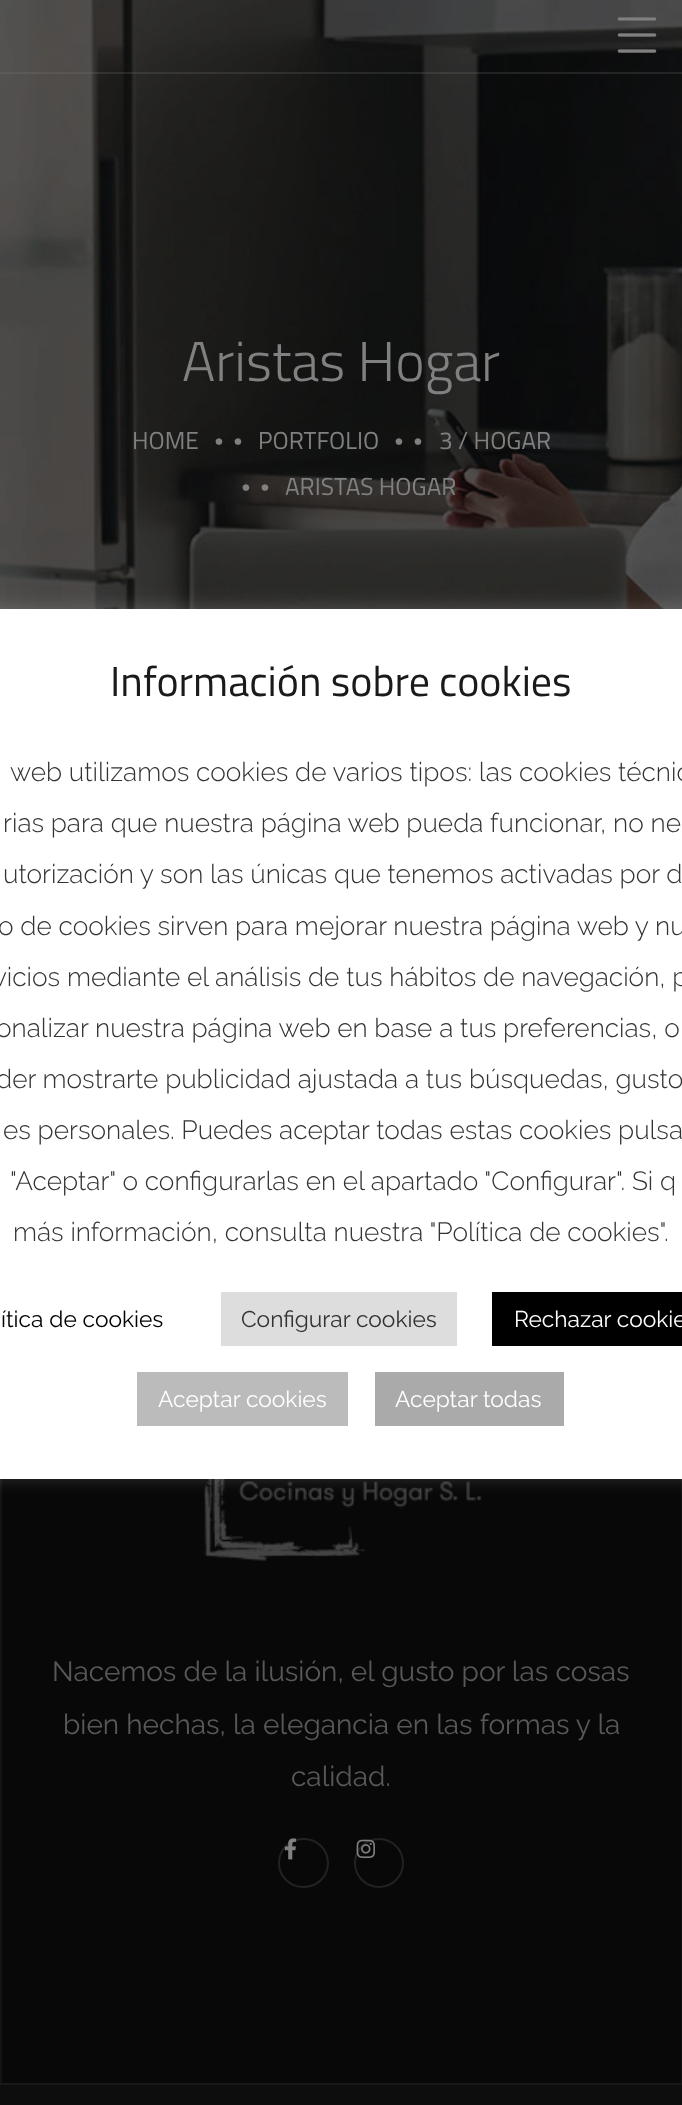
<svg xmlns="http://www.w3.org/2000/svg" width="682" height="2105" viewBox="0 0 682 2105">
  <defs>
    <filter id="blur1" x="-50%" y="-200%" width="200%" height="500%"><feGaussianBlur stdDeviation="9"/></filter>
  </defs>
  <rect width="100%" height="100%" fill="#ffffff"/>
  <image x="0" y="0" width="682" height="609" href="img2.png"/>
  <rect x="0" y="72" width="682" height="2" fill="#808080" fill-opacity="0.2"/>
  <image x="617" y="17" width="40" height="36" href="img1.png"/>
  <text x="182" y="381" font-family="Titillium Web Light" font-size="56" font-weight="300" fill="#808080">Aristas Hogar</text>
  <text x="132" y="449" font-family="Titillium Web" font-size="24.5" fill="#808080">HOME</text>
  <text x="213" y="449" font-family="Josefin Sans" font-size="24.5" font-weight="500" letter-spacing="7" fill="#808080">••</text>
  <text x="258" y="449" font-family="Titillium Web" font-size="24.5" fill="#808080">PORTFOLIO</text>
  <text x="393" y="449" font-family="Josefin Sans" font-size="24.5" font-weight="500" letter-spacing="7" fill="#808080">••</text>
  <text x="439" y="449" font-family="Titillium Web" font-size="24.5" fill="#808080">3 / HOGAR</text>
  <text x="240" y="495" font-family="Josefin Sans" font-size="24.5" font-weight="500" letter-spacing="7" fill="#808080">••</text>
  <text x="285" y="495" font-family="Titillium Web" font-size="24.5" fill="#808080">ARISTAS HOGAR</text>
  <rect x="2" y="1479" width="679" height="604" fill="#080808"/>
  <rect x="681" y="1479" width="1" height="604" fill="#141414"/>
  <rect x="0" y="1479" width="2" height="604" fill="#141414"/>
  <image x="203" y="1479" width="279" height="82" href="img3.png"/>
  <text x="52" y="1681" font-family="Raleway" font-size="28" fill="#595858">Nacemos de la ilusión, el gusto por las cosas</text>
  <text x="63" y="1734" font-family="Raleway" font-size="28" fill="#595858">bien hechas, la elegancia en las formas y la</text>
  <text x="291" y="1786" font-family="Raleway" font-size="28" fill="#595858">calidad.</text>
  <rect x="279" y="1839" width="49" height="48" rx="24" fill="none" stroke="#222222" stroke-width="2"/>
  <image x="284" y="1838" width="13" height="22" href="img4.png"/>
  <circle cx="379" cy="1863" r="24" fill="none" stroke="#222222" stroke-width="2"/>
  <image x="356" y="1839" width="19" height="20" href="img5.png"/>
  <rect x="0" y="2085" width="682" height="20" fill="#0d0d0d"/>
  <rect x="0" y="2083" width="682" height="2" fill="#191919"/>
  <rect x="-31" y="607" width="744" height="870" rx="4" fill="#acabab" fill-opacity="0.3" filter="url(#blur1)"/>
  <rect x="0" y="609" width="682" height="870" fill="#ffffff"/>
  <text x="110" y="696" font-family="Titillium Web" font-size="42" fill="#1a1a1a">Información sobre cookies</text>
  <text x="10" y="781" font-family="Raleway" font-size="26.25" font-weight="300" fill="#333333">web utilizamos cookies de varios tipos: las cookies técnic</text>
  <text x="3" y="832" font-family="Raleway" font-size="26.25" font-weight="300" fill="#333333">rias para que nuestra página web pueda funcionar, no ne</text>
  <text x="3" y="883" font-family="Raleway" font-size="26.25" font-weight="300" fill="#333333">utorización y son las únicas que tenemos activadas por d</text>
  <text x="-2" y="935" font-family="Raleway" font-size="26.25" font-weight="300" fill="#333333">o de cookies sirven para mejorar nuestra página web y nu</text>
  <text x="-7" y="986" font-family="Raleway" font-size="26.25" font-weight="300" fill="#333333">vicios mediante el análisis de tus hábitos de navegación, p</text>
  <text x="-4" y="1037" font-family="Raleway" font-size="26.25" font-weight="300" fill="#333333">onalizar nuestra página web en base a tus preferencias, o</text>
  <text x="-4" y="1088" font-family="Raleway" font-size="26.25" font-weight="300" fill="#333333">der mostrarte publicidad ajustada a tus búsquedas, gusto</text>
  <text x="3" y="1139" font-family="Raleway" font-size="26.25" font-weight="300" fill="#333333">es personales. Puedes aceptar todas estas cookies pulsa</text>
  <text x="10" y="1190" font-family="Raleway" font-size="26.25" font-weight="300" fill="#333333">"Aceptar" o configurarlas en el apartado "Configurar". Si q</text>
  <text x="13" y="1241" font-family="Raleway" font-size="26.25" font-weight="300" fill="#333333">más información, consulta nuestra "Política de cookies".</text>
  <text x="1" y="1327" font-family="Raleway" font-size="22.75" fill="#000000">ítica de cookies</text>
  <rect x="221" y="1292" width="236" height="54" fill="#dddddd"/>
  <text x="241" y="1327" font-family="Raleway" font-size="22.75" fill="#333333">Configurar cookies</text>
  <rect x="492" y="1292" width="190" height="54" fill="#000000"/>
  <text x="514" y="1327" font-family="Raleway" font-size="22.75" fill="#ffffff">Rechazar cookie</text>
  <rect x="137" y="1372" width="211" height="54" fill="#bbbbbb"/>
  <text x="158" y="1407" font-family="Raleway" font-size="22.75" fill="#ffffff">Aceptar cookies</text>
  <rect x="375" y="1372" width="189" height="54" fill="#aaaaaa"/>
  <text x="395" y="1407" font-family="Raleway" font-size="22.75" fill="#ffffff">Aceptar todas</text>
</svg>
